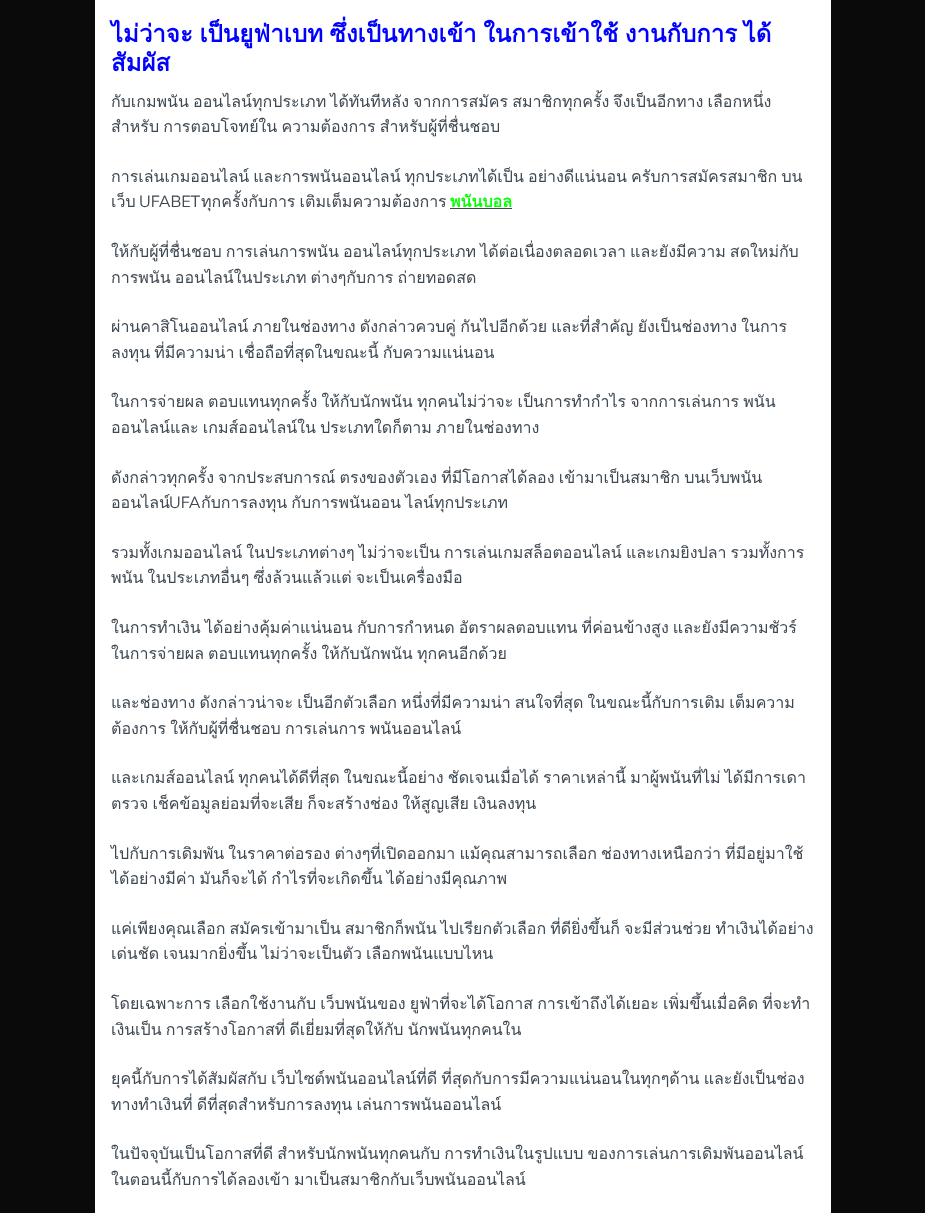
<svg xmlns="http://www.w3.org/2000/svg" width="925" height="1213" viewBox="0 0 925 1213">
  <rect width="100%" height="100%" fill="#0a0a0a"/>
  <rect x="95" y="0" width="736" height="1213" fill="#ffffff"/>
  <text x="111" y="42" word-spacing="-1.5" font-family="Loma" font-size="24" font-weight="bold" fill="#0000ff">ไม่ว่าจะ เป็นยูฟ่าเบท ซึ่งเป็นทางเข้า ในการเข้าใช้ งานกับการ ได้</text>
  <text x="111" y="71" font-family="Loma" font-size="24" font-weight="bold" fill="#0000ff">สัมผัส</text>
  <text x="111" y="107" word-spacing="-1.25" font-family="Loma" font-size="16" fill="#3d4852">กับเกมพนัน ออนไลน์ทุกประเภท ได้ทันทีหลัง จากการสมัคร สมาชิกทุกครั้ง</text>
  <text x="613" y="107" word-spacing="-1.25" font-family="Loma" font-size="16" fill="#3d4852">จึงเป็นอีกทาง เลือกหนึ่ง</text>
  <text x="111" y="132" word-spacing="-1.25" font-family="Loma" font-size="16" fill="#3d4852">สำหรับ การตอบโจทย์ใน ความต้องการ สำหรับผู้ที่ชื่นชอบ</text>
  <text x="111" y="182" word-spacing="-1.25" font-family="Loma" font-size="16" fill="#3d4852">การเล่นเกมออนไลน์ และการพนันออนไลน์ ทุกประเภทได้เป็น อย่างดีแน่นอน ครับการสมัครสมาชิก บน</text>
  <text x="111" y="207" font-family="Loma" font-size="16" fill="#3d4852">เว็บ</text>
  <text x="139" y="207" font-family="Muli" font-size="16" fill="#3d4852">UFABET</text>
  <text x="201" y="207" word-spacing="-1.25" font-family="Loma" font-size="16" fill="#3d4852">ทุกครั้งกับการ เติมเต็มความต้องการ</text>
  <text x="450" y="207" font-family="Loma" font-size="16" font-weight="bold" fill="#00ff00">พนันบอล</text>
  <rect x="450" y="208" width="62" height="1" fill="#3d4852"/>
  <text x="111" y="257" word-spacing="-1.25" font-family="Loma" font-size="16" fill="#3d4852">ให้กับผู้ที่ชื่นชอบ การเล่นการพนัน ออนไลน์ทุกประเภท ได้ต่อเนื่องตลอดเวลา และยังมีความ สดใหม่กับ</text>
  <text x="111" y="283" word-spacing="-1.25" font-family="Loma" font-size="16" fill="#3d4852">การพนัน ออนไลน์ในประเภท ต่างๆกับการ ถ่ายทอดสด</text>
  <text x="111" y="332" word-spacing="-1.25" font-family="Loma" font-size="16" fill="#3d4852">ผ่านคาสิโนออนไลน์ ภายในช่องทาง ดังกล่าวควบคู่ กันไปอีกด้วย และที่สำคัญ ยังเป็นช่องทาง ในการ</text>
  <text x="111" y="358" word-spacing="-1.25" font-family="Loma" font-size="16" fill="#3d4852">ลงทุน ที่มีความน่า เชื่อถือที่สุดในขณะนี้ กับความแน่นอน</text>
  <text x="111" y="407" word-spacing="-1.25" font-family="Loma" font-size="16" fill="#3d4852">ในการจ่ายผล ตอบแทนทุกครั้ง ให้กับนักพนัน ทุกคนไม่ว่าจะ เป็นการทำกำไร จากการเล่นการ พนัน</text>
  <text x="111" y="433" word-spacing="-1.25" font-family="Loma" font-size="16" fill="#3d4852">ออนไลน์และ เกมส์ออนไลน์ใน ประเภทใดก็ตาม ภายในช่องทาง</text>
  <text x="111" y="483" font-family="Loma" font-size="16" fill="#3d4852">ดังกล่าวทุกครั้ง</text>
  <text x="218" y="483" word-spacing="-1.25" font-family="Loma" font-size="16" fill="#3d4852">จากประสบการณ์ ตรงของตัวเอง ที่มีโอกาสได้ลอง เข้ามาเป็นสมาชิก บนเว็บพนัน</text>
  <text x="111" y="508" font-family="Loma" font-size="16" fill="#3d4852">ออนไลน์</text>
  <text x="169" y="508" font-family="Muli" font-size="16" fill="#3d4852">UFA</text>
  <text x="201" y="508" word-spacing="-1.25" font-family="Loma" font-size="16" fill="#3d4852">กับการลงทุน กับการพนันออน ไลน์ทุกประเภท</text>
  <text x="111" y="558" word-spacing="-1.25" font-family="Loma" font-size="16" fill="#3d4852">รวมทั้งเกมออนไลน์ ในประเภทต่างๆ ไม่ว่าจะเป็น การเล่นเกมสล็อตออนไลน์ และเกมยิงปลา รวมทั้งการ</text>
  <text x="111" y="583" word-spacing="-1.25" font-family="Loma" font-size="16" fill="#3d4852">พนัน ในประเภทอื่นๆ ซึ่งล้วนแล้วแต่ จะเป็นเครื่องมือ</text>
  <text x="111" y="633" word-spacing="-1.25" font-family="Loma" font-size="16" fill="#3d4852">ในการทำเงิน ได้อย่างคุ้มค่าแน่นอน กับการกำหนด อัตราผลตอบแทน ที่ค่อนข้างสูง และยังมีความชัวร์</text>
  <text x="111" y="659" word-spacing="-1.25" font-family="Loma" font-size="16" fill="#3d4852">ในการจ่ายผล ตอบแทนทุกครั้ง ให้กับนักพนัน ทุกคนอีกด้วย</text>
  <text x="111" y="708" word-spacing="-1.25" font-family="Loma" font-size="16" fill="#3d4852">และช่องทาง ดังกล่าวน่าจะ เป็นอีกตัวเลือก หนึ่งที่มีความน่า สนใจที่สุด ในขณะนี้กับการเติม เต็มความ</text>
  <text x="111" y="734" word-spacing="-1.25" font-family="Loma" font-size="16" fill="#3d4852">ต้องการ ให้กับผู้ที่ชื่นชอบ การเล่นการ พนันออนไลน์</text>
  <text x="111" y="783" word-spacing="-1.25" font-family="Loma" font-size="16" fill="#3d4852">และเกมส์ออนไลน์ ทุกคนได้ดีที่สุด ในขณะนี้อย่าง ชัดเจนเมื่อได้ ราคาเหล่านี้ มาผู้พนันที่ไม่ ได้มีการเดา</text>
  <text x="111" y="809" word-spacing="-1.25" font-family="Loma" font-size="16" fill="#3d4852">ตรวจ เช็คข้อมูลย่อมที่จะเสีย ก็จะสร้างช่อง ให้สูญเสีย เงินลงทุน</text>
  <text x="111" y="859" word-spacing="-1.25" font-family="Loma" font-size="16" fill="#3d4852">ไปกับการเดิมพัน ในราคาต่อรอง ต่างๆที่เปิดออกมา แม้คุณสามารถเลือก ช่องทางเหนือกว่า ที่มีอยู่มาใช้</text>
  <text x="111" y="884" word-spacing="-1.25" font-family="Loma" font-size="16" fill="#3d4852">ได้อย่างมีค่า มันก็จะได้ กำไรที่จะเกิดขึ้น ได้อย่างมีคุณภาพ</text>
  <text x="111" y="934" word-spacing="-1.25" font-family="Loma" font-size="16" fill="#3d4852">แค่เพียงคุณเลือก สมัครเข้ามาเป็น สมาชิกก็พนัน ไปเรียกตัวเลือก ที่ดียิ่งขึ้นก็ จะมีส่วนช่วย ทำเงินได้อย่าง</text>
  <text x="111" y="959" word-spacing="-1.25" font-family="Loma" font-size="16" fill="#3d4852">เด่นชัด เจนมากยิ่งขึ้น ไม่ว่าจะเป็นตัว เลือกพนันแบบไหน</text>
  <text x="111" y="1009" word-spacing="-1.25" font-family="Loma" font-size="16" fill="#3d4852">โดยเฉพาะการ เลือกใช้งานกับ เว็บพนันของ ยูฟ่าที่จะได้โอกาส การเข้าถึงได้เยอะ เพิ่มขึ้นเมื่อคิด ที่จะทำ</text>
  <text x="111" y="1035" font-family="Loma" font-size="16" fill="#3d4852">เงิน</text>
  <text x="135" y="1035" word-spacing="-1.25" font-family="Loma" font-size="16" fill="#3d4852">เป็น การสร้างโอกาสที่ ดีเยี่ยมที่สุดให้กับ นักพนันทุกคนใน</text>
  <text x="111" y="1084" word-spacing="-1.25" font-family="Loma" font-size="16" fill="#3d4852">ยุคนี้กับการได้สัมผัสกับ เว็บไซต์พนันออนไลน์ที่ดี ที่สุดกับการมีความแน่นอนในทุกๆด้าน และยังเป็นช่อง</text>
  <text x="111" y="1110" word-spacing="-1.25" font-family="Loma" font-size="16" fill="#3d4852">ทางทำเงินที่ ดีที่สุดสำหรับการลงทุน เล่นการพนันออนไลน์</text>
  <text x="111" y="1159" font-family="Loma" font-size="16" fill="#3d4852">ในปัจจุบัน</text>
  <text x="179" y="1159" word-spacing="-1.25" font-family="Loma" font-size="16" fill="#3d4852">เป็นโอกาสที่ดี สำหรับนักพนันทุกคนกับ การทำเงินในรูปแบบ ของการเล่นการเดิมพันออนไลน์</text>
  <text x="111" y="1185" word-spacing="-1.25" font-family="Loma" font-size="16" fill="#3d4852">ในตอนนี้กับการได้ลองเข้า มาเป็นสมาชิกกับเว็บพนันออนไลน์</text>
</svg>
